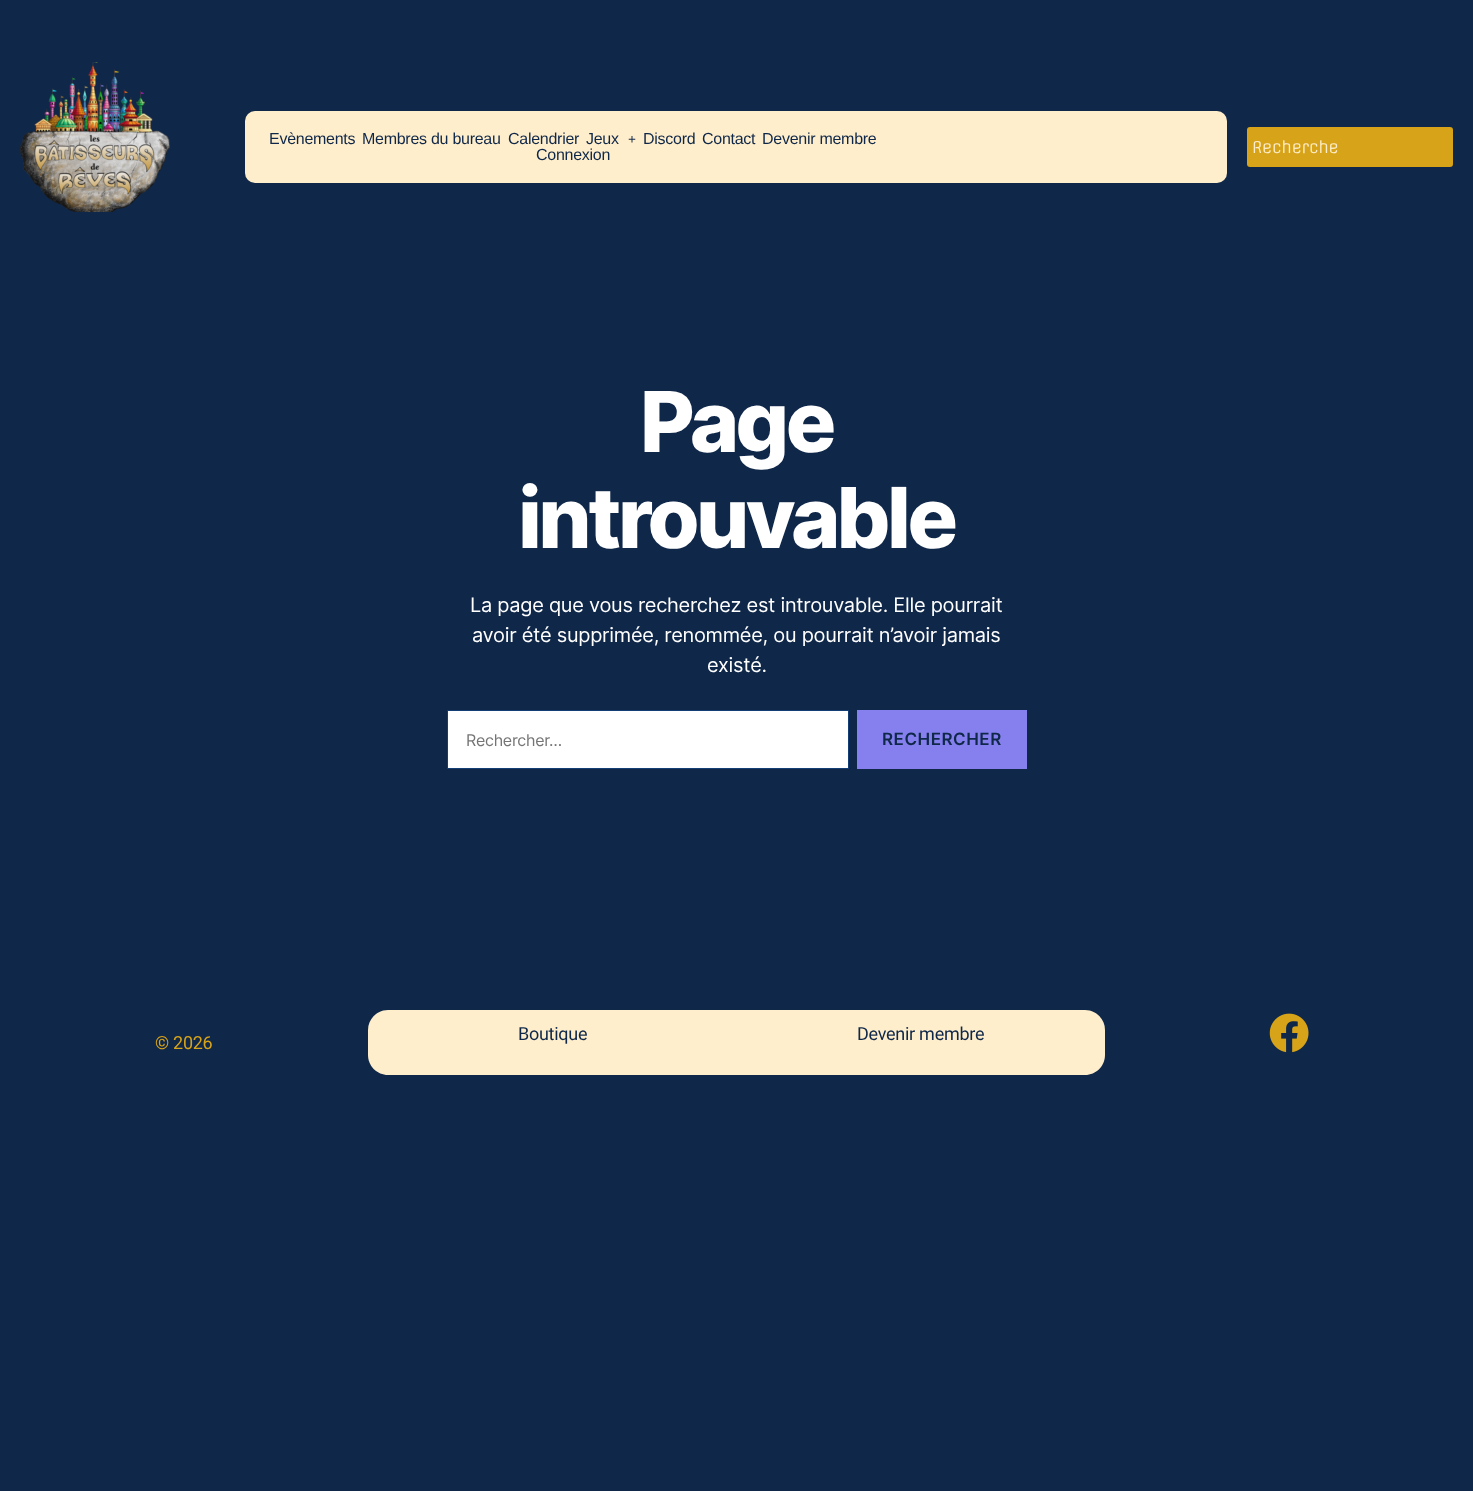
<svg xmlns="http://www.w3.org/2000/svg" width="1473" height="1491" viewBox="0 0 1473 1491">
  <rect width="100%" height="100%" fill="#0f2749"/>
  <image x="20" y="62" width="150" height="150" href="img1.png"/>
  <rect x="245" y="111" width="982" height="72" rx="10" fill="#ffeecb"/>
  <text x="269" y="144" font-family="Liberation Sans" font-size="16" letter-spacing="-0.27" fill="#0f2749">Evènements</text>
  <text x="362" y="144" font-family="Liberation Sans" font-size="16" letter-spacing="-0.27" fill="#0f2749">Membres du bureau</text>
  <text x="508" y="144" font-family="Liberation Sans" font-size="16" letter-spacing="-0.27" fill="#0f2749">Calendrier</text>
  <text x="586" y="144" font-family="Liberation Sans" font-size="16" letter-spacing="-0.27" fill="#0f2749">Jeux</text>
  <text x="628" y="144" font-family="Liberation Serif" font-size="14" font-weight="bold" letter-spacing="-0.27" fill="#0f2749">+</text>
  <text x="643" y="144" font-family="Liberation Sans" font-size="16" letter-spacing="-0.27" fill="#0f2749">Discord</text>
  <text x="702" y="144" font-family="Liberation Sans" font-size="16" letter-spacing="-0.27" fill="#0f2749">Contact</text>
  <text x="762" y="144" font-family="Liberation Sans" font-size="16" letter-spacing="-0.27" fill="#0f2749">Devenir membre</text>
  <text x="536" y="160" font-family="Liberation Sans" font-size="16" letter-spacing="-0.27" fill="#0f2749">Connexion</text>
  <rect x="1247" y="127" width="206" height="40" rx="3" fill="#d7a319"/>
  <text x="1252" y="153" font-family="Offside" font-size="16" letter-spacing="-0.25" fill="#ffeecb">Recherche</text>
  <text x="640" y="452" font-family="Inter" font-size="84" font-weight="800" letter-spacing="-3.5" fill="#ffffff">Page</text>
  <text x="518" y="548" font-family="Inter" font-size="84" font-weight="800" letter-spacing="-3.5" fill="#ffffff">introuvable</text>
  <text x="470" y="612" font-family="Inter" font-size="20" letter-spacing="-0.27" fill="#ffffff">La page que vous recherchez est introuvable. Elle pourrait</text>
  <text x="472" y="642" font-family="Inter" font-size="20" letter-spacing="-0.27" fill="#ffffff">avoir été supprimée, renommée, ou pourrait n’avoir jamais</text>
  <text x="707" y="672" font-family="Inter" font-size="20" letter-spacing="-0.27" fill="#ffffff">existé.</text>
  <rect x="447.5" y="710.5" width="401" height="58" fill="#ffffff" stroke="#133e75"/>
  <text x="466" y="746" font-family="Inter" font-size="16" letter-spacing="-0.25" fill="#757575">Rechercher…</text>
  <rect x="857" y="710" width="170" height="59" fill="#8680ee"/>
  <text x="882" y="745" font-family="Inter" font-size="17" font-weight="600" letter-spacing="0.5" fill="#0f2749">RECHERCHER</text>
  <text x="155" y="1049" font-family="Roboto" font-size="18" letter-spacing="-0.27" fill="#d7a319">© 2026</text>
  <path d="M388 1010H737V1075H388C377 1075 368 1066 368 1055V1030C368 1019 377 1010 388 1010Z" fill="#ffeecb"/>
  <text x="518" y="1040" font-family="Roboto" font-size="18" letter-spacing="-0.27" fill="#0f2749">Boutique</text>
  <path d="M737 1010H1085C1096 1010 1105 1019 1105 1030V1055C1105 1066 1096 1075 1085 1075H737Z" fill="#ffeecb"/>
  <text x="857" y="1040" font-family="Roboto" font-size="18" letter-spacing="-0.27" fill="#0f2749">Devenir membre</text>
  <image x="1269" y="1013" width="40" height="40" href="img2.png"/>
</svg>
